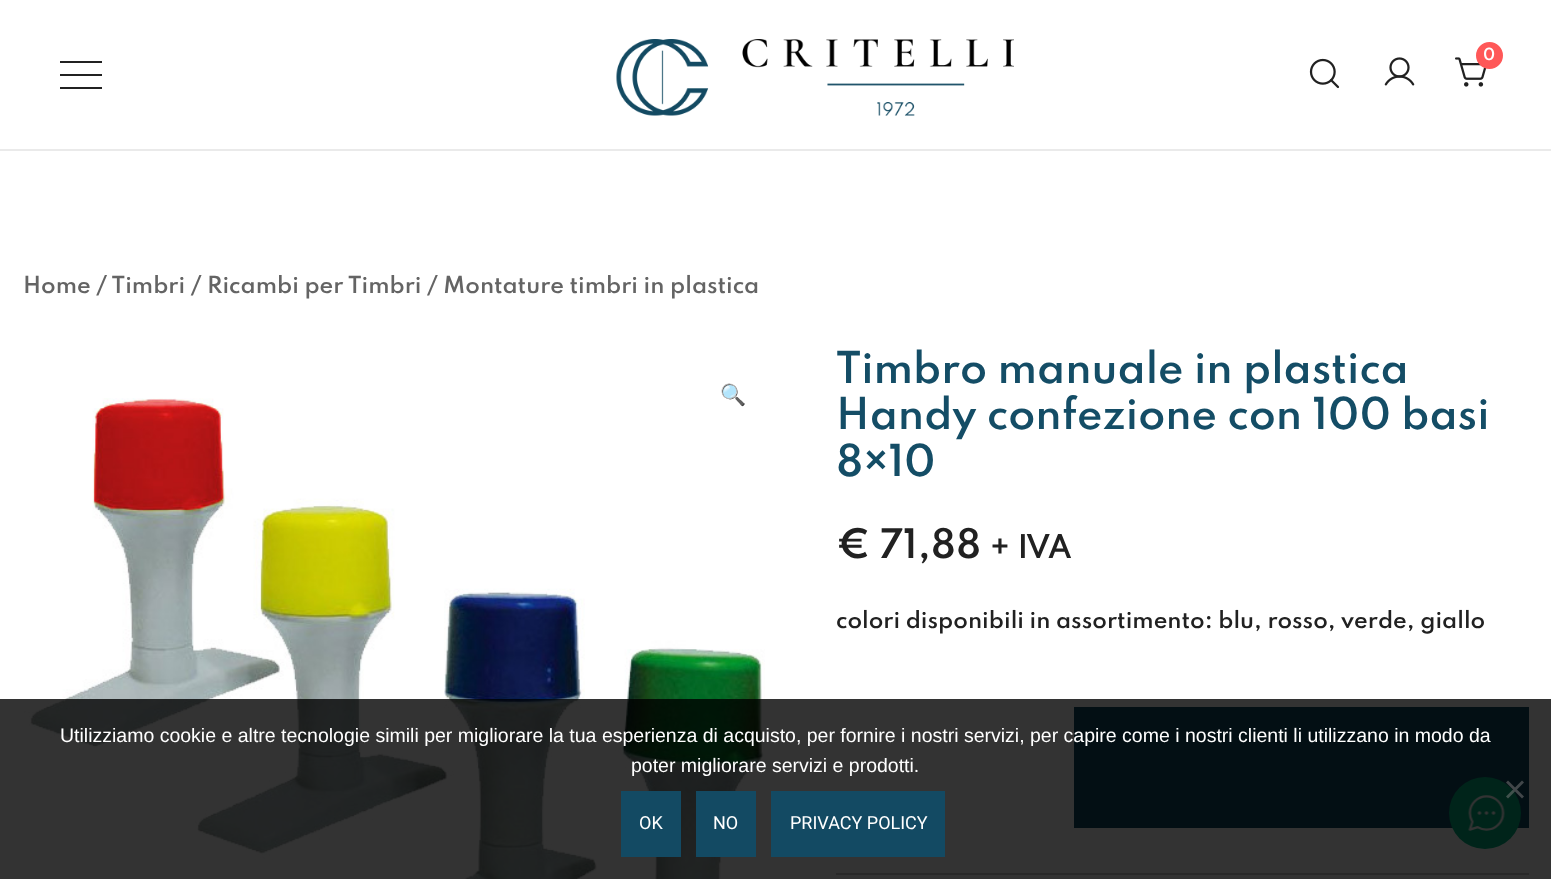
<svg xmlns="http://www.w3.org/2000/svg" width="1551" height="879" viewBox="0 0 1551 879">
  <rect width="100%" height="100%" fill="#ffffff"/>
  <rect x="0" y="149" width="1551" height="2" fill="#eaeaea"/>
  <image x="616" y="39" width="398" height="77" href="img1.png"/>
  <image x="1455" y="57" width="32" height="30" href="img2.png"/>
  <circle cx="1489.5" cy="55.5" r="12.5" fill="#ff5858" stroke="#ff5858" stroke-width="2"/>
  <text x="1483" y="60" font-family="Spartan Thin" font-size="15" font-weight="600" fill="#ffffff">0</text>
  <image x="1384" y="57" width="31" height="29" href="img3.png"/>
  <image x="1309" y="58" width="31" height="31" href="img4.png"/>
  <rect x="60" y="61" width="42" height="2" fill="#212121"/>
  <rect x="60" y="74" width="42" height="2" fill="#212121"/>
  <rect x="60" y="87" width="42" height="2" fill="#212121"/>
  <text x="23" y="293" font-family="Spartan Thin" font-size="21" font-weight="600" fill="#646464">Home / Timbri / Ricambi per Timbri / Montature timbri in plastica</text>
  <image x="24" y="398" width="741" height="481" href="img5.png"/>
  <text x="720" y="402" font-family="Noto Color Emoji" font-size="21" font-weight="bold" fill="#144d66">🔍</text>
  <text x="836" y="383" font-family="Spartan Thin" font-size="39" font-weight="600" fill="#144d66">Timbro manuale in plastica</text>
  <text x="836" y="429" font-family="Spartan Thin" font-size="39" font-weight="600" fill="#144d66">Handy confezione con 100 basi</text>
  <text x="836" y="476" font-family="Spartan Thin" font-size="39" font-weight="600" fill="#144d66">8×10</text>
  <text x="836" y="558" font-family="Spartan Thin" font-size="36" font-weight="600" fill="#212121">€ 71,88</text>
  <text x="990" y="558" font-family="Spartan Thin" font-size="29" font-weight="600" fill="#212121">+ IVA</text>
  <text x="836" y="628" font-family="Spartan Thin" font-size="21" font-weight="600" fill="#212121">colori disponibili in assortimento: blu, rosso, verde, giallo</text>
  <rect x="1074" y="707" width="455" height="121" fill="#134a63"/>
  <rect x="836" y="873" width="693" height="2" fill="#cccccc"/>
  <circle cx="1485" cy="813" r="36" fill="#00b682"/>
  <image x="1468" y="795" width="37" height="36" href="img6.png"/>
  <rect x="0" y="699" width="1551" height="180" fill="#000000" fill-opacity="0.8"/>
  <text x="60" y="742" font-family="Liberation Sans" font-size="19.5" fill="#ffffff">Utilizziamo cookie e altre tecnologie simili per migliorare la tua esperienza di acquisto, per fornire i nostri servizi, per capire come i nostri clienti li utilizzano in modo da</text>
  <text x="631" y="772" font-family="Liberation Sans" font-size="19.5" fill="#ffffff">poter migliorare servizi e prodotti.</text>
  <path d="M1522 780.5L1524 782.5L1508 798.5L1506 796.5Z" fill="#808080" fill-opacity="0.5"/>
  <path d="M1506 782.5L1508 780.5L1524 796.5L1522 798.5Z" fill="#42474a"/>
  <rect x="621" y="791" width="60" height="66" fill="#134a63"/>
  <text x="639" y="829" font-family="Roboto" font-size="18" fill="#ffffff">OK</text>
  <rect x="696" y="791" width="60" height="66" fill="#134a63"/>
  <text x="713" y="829" font-family="Roboto" font-size="18" fill="#ffffff">NO</text>
  <rect x="771" y="791" width="174" height="66" fill="#134a63"/>
  <text x="790" y="829" font-family="Roboto" font-size="18" fill="#ffffff">PRIVACY POLICY</text>
</svg>
